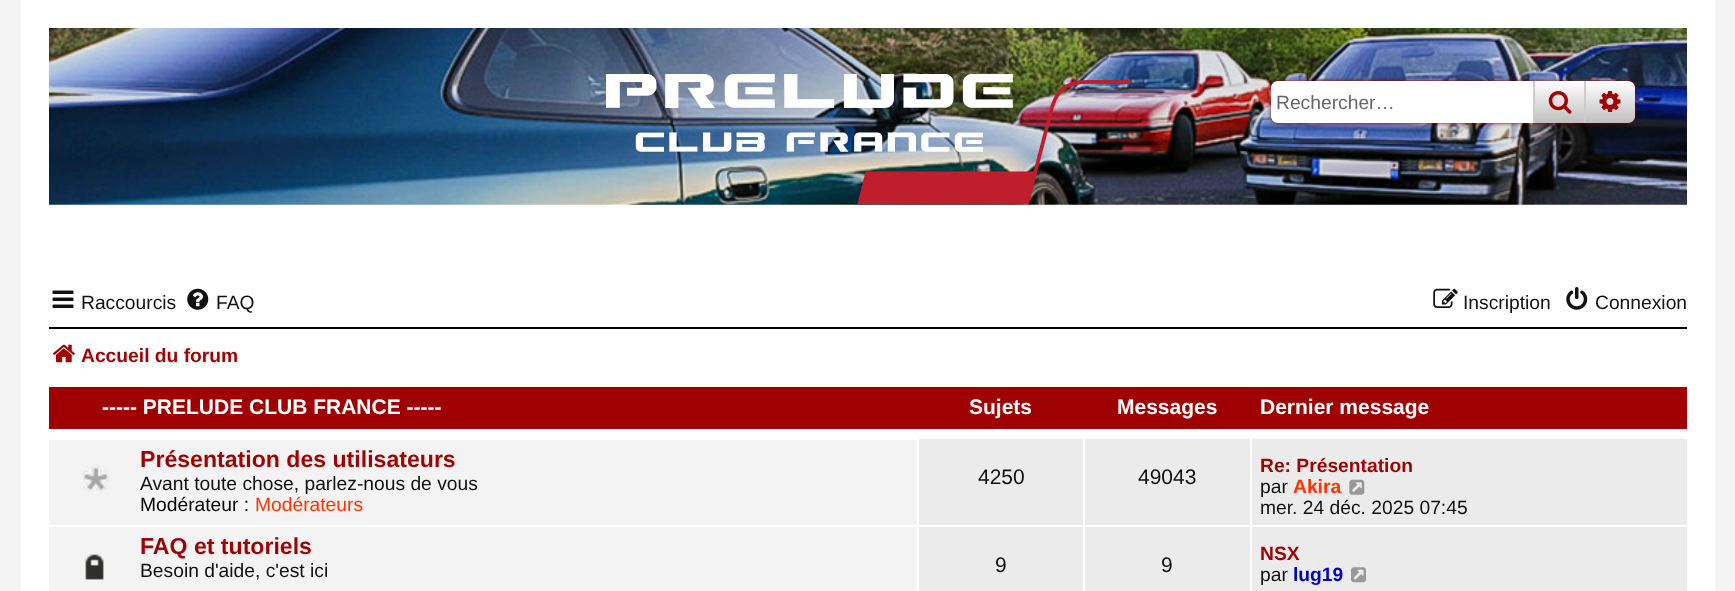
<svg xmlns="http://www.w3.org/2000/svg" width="1735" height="591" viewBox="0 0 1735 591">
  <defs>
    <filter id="blur1" x="-50%" y="-200%" width="200%" height="500%"><feGaussianBlur stdDeviation="2"/></filter>
    <linearGradient id="g1" gradientUnits="userSpaceOnUse" x1="1559" y1="81" x2="1559" y2="123"><stop offset="0" stop-color="#ffffff"/><stop offset="1" stop-color="#bfbfbf"/></linearGradient>
    <linearGradient id="g2" gradientUnits="userSpaceOnUse" x1="1610" y1="81" x2="1610" y2="123"><stop offset="0" stop-color="#ffffff"/><stop offset="1" stop-color="#bfbfbf"/></linearGradient>
  </defs>
  <rect width="100%" height="100%" fill="#f3f3f3"/>
  <rect x="21" y="0" width="1694" height="591" fill="#ffffff"/>
  <image x="49" y="28" width="1638" height="177" href="img1.png"/>
  <image x="606" y="74" width="525" height="131" href="img2.png"/>
  <rect x="1271" y="81" width="364" height="42" rx="7" fill="#760000" filter="url(#blur1)"/>
  <path d="M1278 81H1533V123H1278C1274 123 1271 120 1271 116V88C1271 84 1274 81 1278 81Z" fill="#ffffff"/>
  <text x="1276" y="109" font-family="Liberation Sans" font-size="19.25" fill="#666666">Rechercher…</text>
  <rect x="1535" y="81" width="49" height="42" fill="url(#g1)"/>
  <rect x="1584" y="81" width="2" height="42" fill="#cccccc"/>
  <rect x="1533" y="81" width="2" height="42" fill="#cccccc"/>
  <image x="1548" y="91" width="24" height="23" href="img3.png"/>
  <path d="M1586 81H1628C1632 81 1635 84 1635 88V116C1635 120 1632 123 1628 123H1586Z" fill="url(#g2)"/>
  <image x="1599" y="91" width="22" height="21" href="img4.png"/>
  <image x="52" y="290" width="22" height="18" href="img5.png"/>
  <text x="81" y="309" font-family="Liberation Sans" font-size="19.25" fill="#111111">Raccourcis</text>
  <image x="187" y="288" width="22" height="22" href="img6.png"/>
  <text x="216" y="309" font-family="Liberation Sans" font-size="19.25" fill="#111111">FAQ</text>
  <image x="1433" y="288" width="25" height="20" href="img7.png"/>
  <text x="1463" y="309" font-family="Liberation Sans" font-size="19.25" fill="#111111">Inscription</text>
  <image x="1566" y="287" width="22" height="23" href="img8.png"/>
  <text x="1595" y="309" font-family="Liberation Sans" font-size="19.25" fill="#111111">Connexion</text>
  <rect x="49" y="327" width="1638" height="2" fill="#000000"/>
  <image x="52" y="344" width="23" height="19" href="img9.png"/>
  <text x="81" y="362" font-family="Liberation Sans" font-size="19.25" font-weight="bold" fill="#9f0002">Accueil du forum</text>
  <rect x="49" y="387" width="1638" height="42" fill="#9f0002"/>
  <text x="102" y="414" font-family="Liberation Sans" font-size="21" font-weight="bold" fill="#ffffff">----- PRELUDE CLUB FRANCE -----</text>
  <text x="969" y="414" font-family="Liberation Sans" font-size="21" font-weight="bold" fill="#ffffff">Sujets</text>
  <text x="1117" y="414" font-family="Liberation Sans" font-size="21" font-weight="bold" fill="#ffffff">Messages</text>
  <text x="1260" y="414" font-family="Liberation Sans" font-size="21" font-weight="bold" fill="#ffffff">Dernier message</text>
  <rect x="49" y="440" width="868" height="151" fill="#f3f3f3"/>
  <image x="82" y="465" width="29" height="27" href="img10.png"/>
  <text x="140" y="467" font-family="Liberation Sans" font-size="23.1" font-weight="bold" fill="#9f0002">Présentation des utilisateurs</text>
  <text x="140" y="490" font-family="Liberation Sans" font-size="19.25" fill="#111111">Avant toute chose, parlez-nous de vous</text>
  <text x="140" y="511" font-family="Liberation Sans" font-size="19.25" fill="#000000">Modérateur :</text>
  <text x="255" y="511" font-family="Liberation Sans" font-size="19.25" fill="#ff3300">Modérateurs</text>
  <rect x="919" y="439" width="164" height="86" fill="#ebebeb"/>
  <text x="978" y="484" font-family="Liberation Sans" font-size="21" fill="#111111">4250</text>
  <rect x="1085" y="439" width="165" height="86" fill="#ebebeb"/>
  <text x="1138" y="484" font-family="Liberation Sans" font-size="21" fill="#111111">49043</text>
  <rect x="1252" y="439" width="435" height="86" fill="#ebebeb"/>
  <text x="1260" y="472" font-family="Liberation Sans" font-size="19.25" font-weight="bold" fill="#9f0002">Re: Présentation</text>
  <text x="1260" y="493" font-family="Liberation Sans" font-size="19.25" fill="#111111">par</text>
  <text x="1293" y="493" font-family="Liberation Sans" font-size="19.25" font-weight="bold" fill="#ff3300">Akira</text>
  <image x="1349" y="479" width="16" height="16" href="img11.png"/>
  <text x="1260" y="514" font-family="Liberation Sans" font-size="19.25" fill="#111111">mer. 24 déc. 2025 07:45</text>
  <rect x="49" y="525" width="868" height="2" fill="#ffffff"/>
  <image x="85" y="554" width="19" height="26" href="img12.png"/>
  <text x="140" y="554" font-family="Liberation Sans" font-size="23.1" font-weight="bold" fill="#9f0002">FAQ et tutoriels</text>
  <text x="140" y="577" font-family="Liberation Sans" font-size="19.25" fill="#111111">Besoin d'aide, c'est ici</text>
  <rect x="919" y="527" width="164" height="64" fill="#ebebeb"/>
  <text x="995" y="572" font-family="Liberation Sans" font-size="21" fill="#111111">9</text>
  <rect x="1085" y="527" width="165" height="64" fill="#ebebeb"/>
  <text x="1161" y="572" font-family="Liberation Sans" font-size="21" fill="#111111">9</text>
  <rect x="1252" y="527" width="435" height="64" fill="#ebebeb"/>
  <text x="1260" y="560" font-family="Liberation Sans" font-size="19.25" font-weight="bold" fill="#9f0002">NSX</text>
  <text x="1260" y="581" font-family="Liberation Sans" font-size="19.25" fill="#111111">par</text>
  <text x="1293" y="581" font-family="Liberation Sans" font-size="19.25" font-weight="bold" fill="#0000bf">lug19</text>
  <image x="1351" y="567" width="15" height="16" href="img13.png"/>
</svg>
